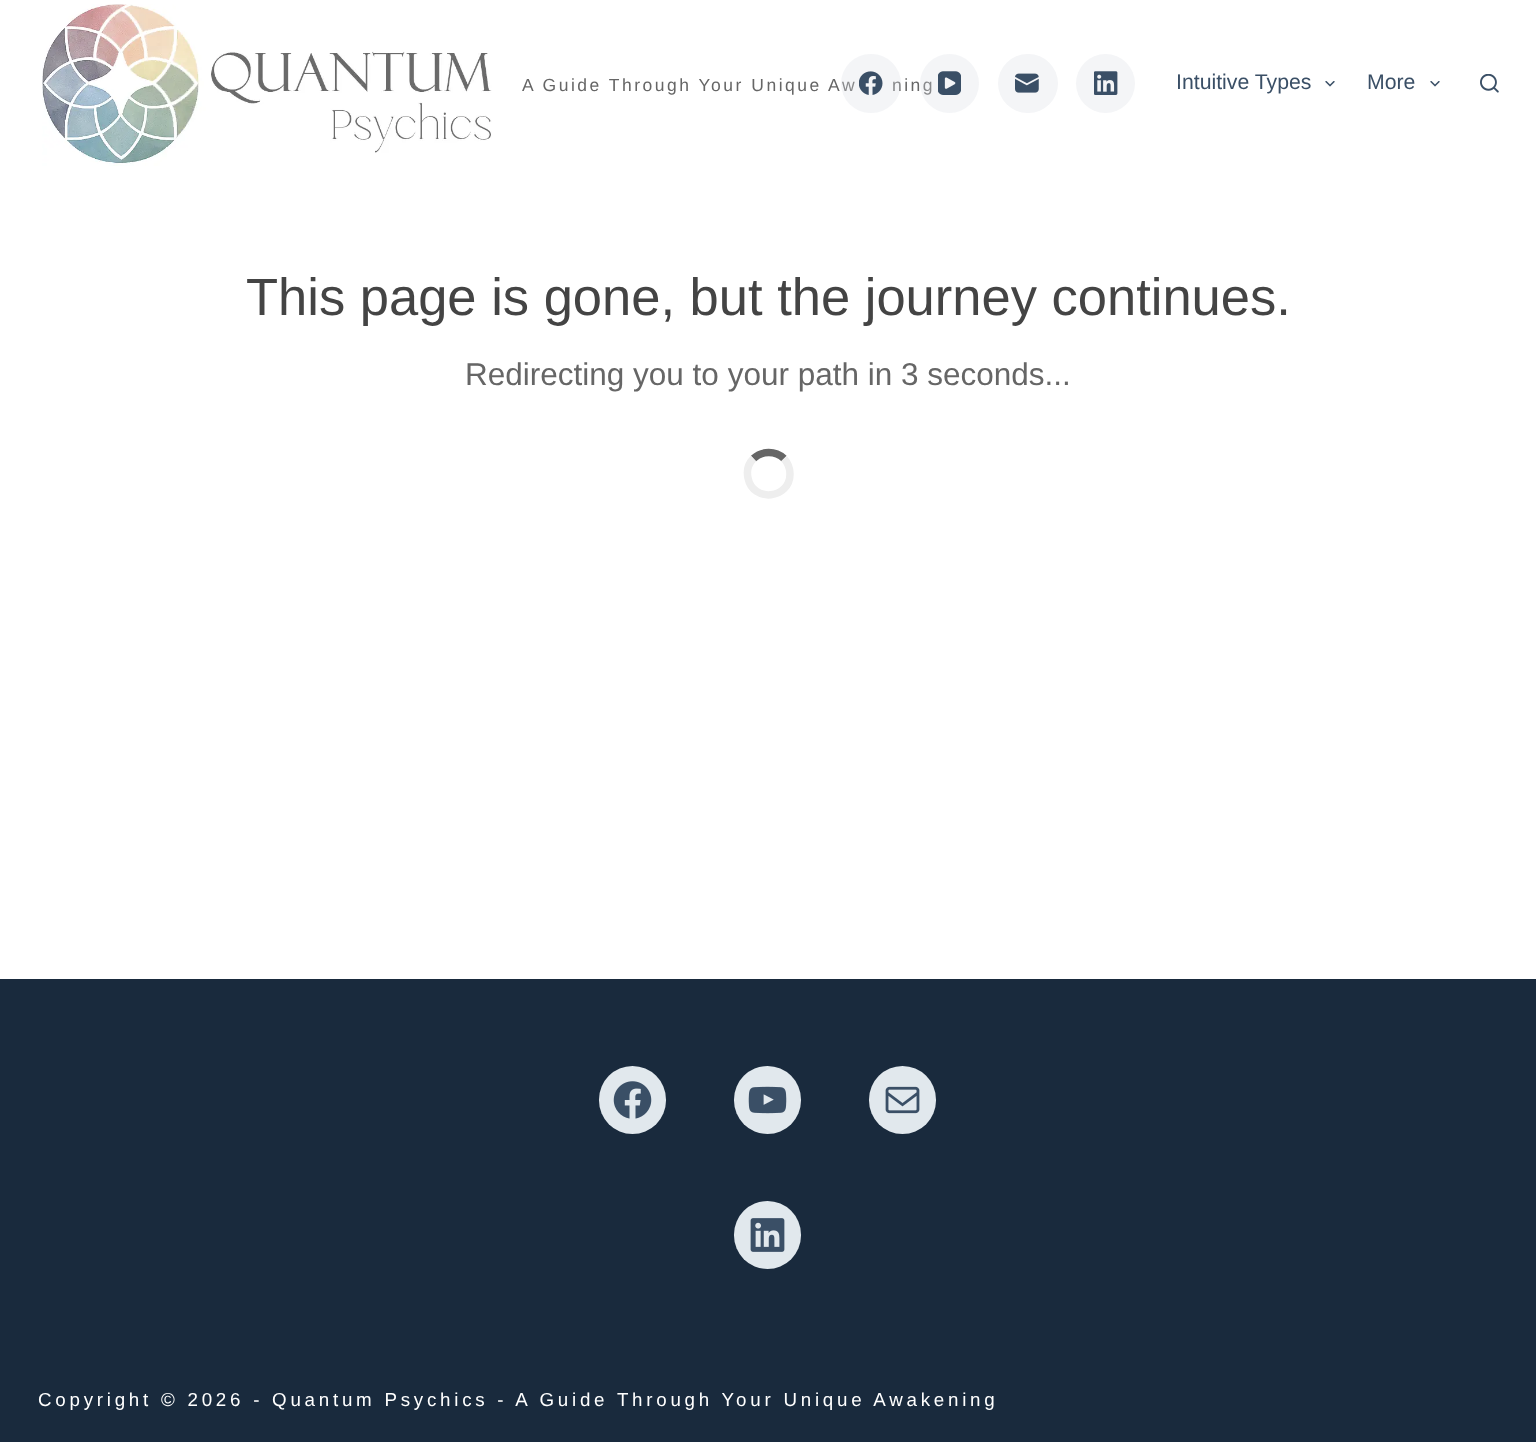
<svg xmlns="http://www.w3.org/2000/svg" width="1536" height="1442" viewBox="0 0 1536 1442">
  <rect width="100%" height="100%" fill="#ffffff"/>
  <image x="42" y="4" width="450" height="162" href="img1.png"/>
  <text x="522" y="91" font-family="Liberation Sans" font-size="17.5" letter-spacing="2.5" fill="#666666">A Guide Through Your Unique Aw</text>
  <text x="892" y="91" font-family="Liberation Sans" font-size="17.5" letter-spacing="2.5" fill="#666666">ning</text>
  <rect x="841" y="54" width="60" height="59" rx="29.5" fill="#dadee4" fill-opacity="0.3"/>
  <image x="859" y="71" width="24" height="24" href="img2.png"/>
  <circle cx="949.5" cy="83.5" r="29.5" fill="#dadee4" fill-opacity="0.3"/>
  <image x="938" y="71" width="23" height="24" href="img3.png"/>
  <rect x="998" y="54" width="60" height="59" rx="29.5" fill="#f4f5f7"/>
  <image x="1015" y="73" width="24" height="20" href="img4.png"/>
  <circle cx="1105.5" cy="83.5" r="29.5" fill="#f4f5f7"/>
  <image x="1094" y="71" width="24" height="24" href="img5.png"/>
  <text x="1176" y="89" font-family="Liberation Sans" font-size="21.25" fill="#3a4f66">Intuitive Types</text>
  <image x="1325" y="81" width="10" height="6" href="img6.png"/>
  <text x="1367" y="89" font-family="Liberation Sans" font-size="21.25" fill="#3a4f66">More</text>
  <image x="1430" y="81" width="10" height="6" href="img6.png"/>
  <image x="1480" y="74" width="19" height="19" href="img7.png"/>
  <text x="246" y="315" font-family="Liberation Sans" font-size="52.5" fill="#444444">This page is gone, but the journey continues.</text>
  <text x="465" y="385" font-family="Liberation Sans" font-size="31.5" fill="#666666">Redirecting you to your path in 3 seconds...</text>
  <path d="M753.5 458.5C762 450.5 775.5 450.5 784 458.5" fill="none" stroke="#666666" stroke-width="7.5"/>
  <path d="M784 458.5C787.5 462.5 790 468 790 474C790 499 753 503 748 478C746.5 471 748.5 463.5 753.5 458.5" fill="none" stroke="#eeeeee" stroke-width="7.5"/>
  <rect x="0" y="979" width="1536" height="463" fill="#192a3d"/>
  <rect x="599" y="1066" width="67" height="68" rx="33.5" fill="#e1e8ed"/>
  <image x="613" y="1081" width="39" height="38" href="img8.png"/>
  <rect x="734" y="1066" width="67" height="68" rx="33.5" fill="#e1e8ed"/>
  <image x="748" y="1086" width="39" height="28" href="img9.png"/>
  <rect x="869" y="1066" width="67" height="68" rx="33.5" fill="#e1e8ed"/>
  <image x="885" y="1086" width="35" height="28" href="img10.png"/>
  <rect x="734" y="1201" width="67" height="68" rx="33.5" fill="#e1e8ed"/>
  <image x="750" y="1218" width="35" height="34" href="img11.png"/>
  <text x="38" y="1406" font-family="Liberation Sans" font-size="18.75" letter-spacing="3.75" fill="#ffffff">Copyright © 2026 - Quantum Psychics - A Guide Through Your Unique Awakening</text>
</svg>
